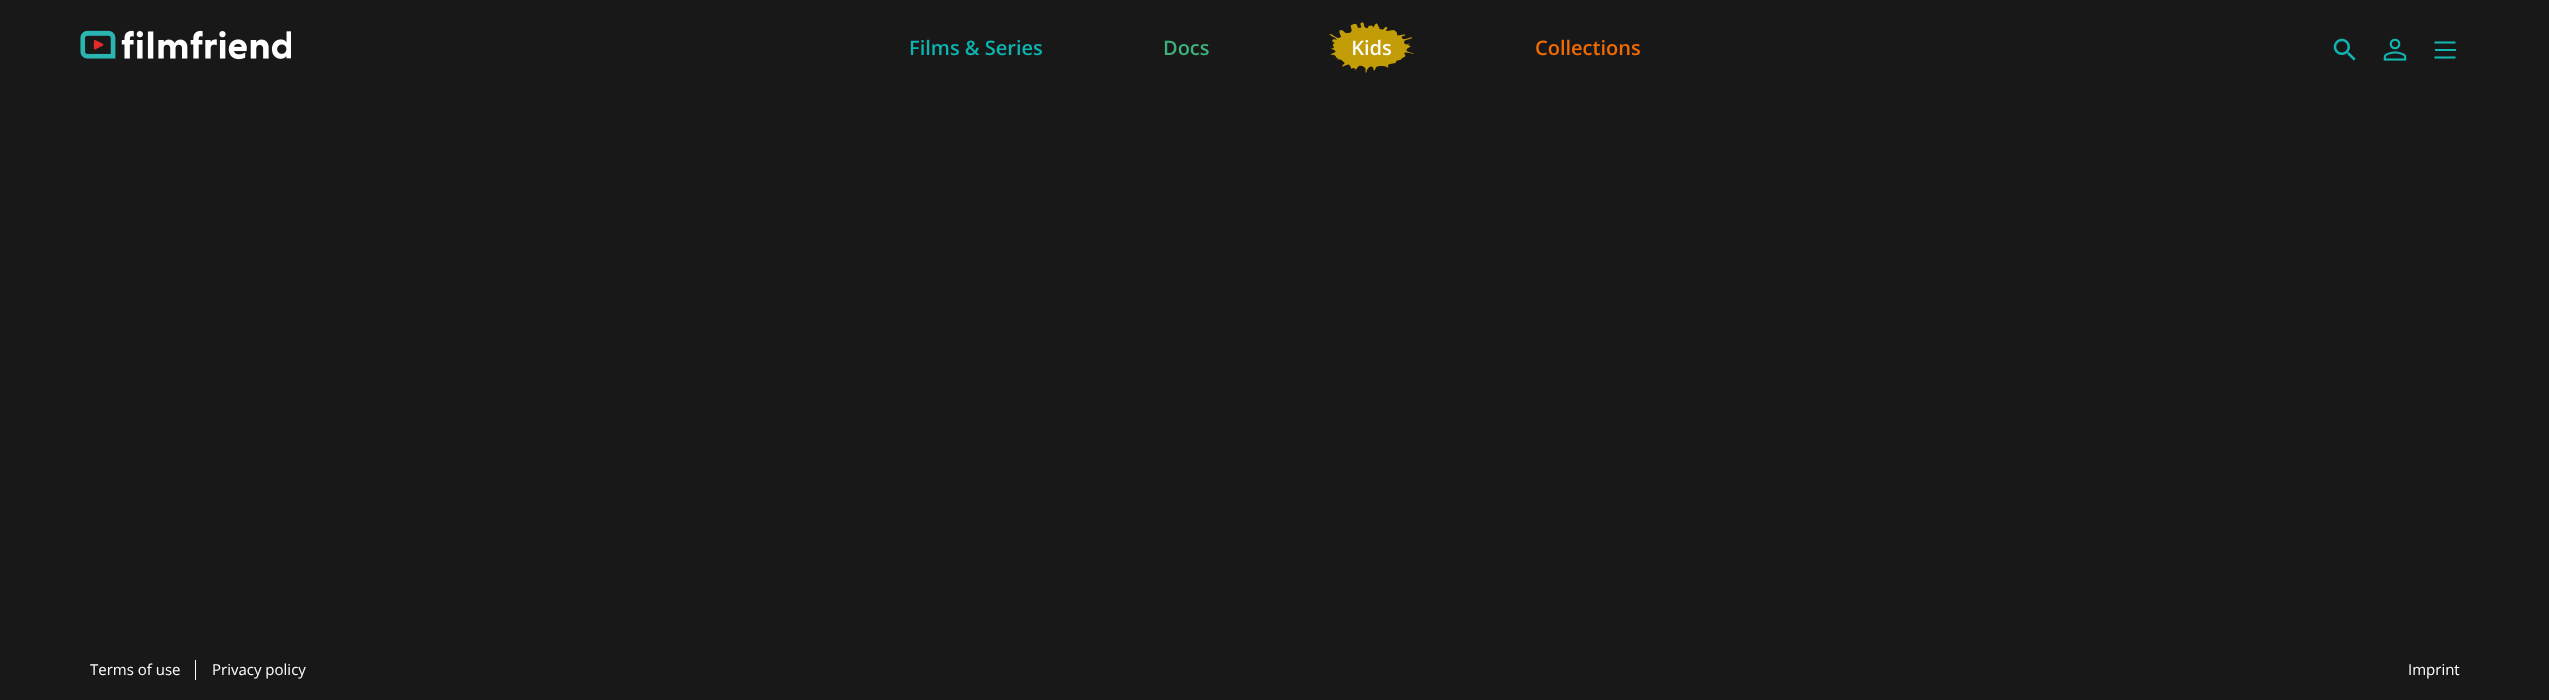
<svg xmlns="http://www.w3.org/2000/svg" width="2549" height="700" viewBox="0 0 2549 700">
  <rect width="100%" height="100%" fill="#181818"/>
  <image x="80" y="30" width="211" height="30" href="img1.png"/>
  <text x="909" y="55" font-family="Open Sans" font-size="20" font-weight="600" fill="#0db3af">Films &amp; Series</text>
  <text x="1163" y="55" font-family="Open Sans" font-size="20" font-weight="600" fill="#3eb07c">Docs</text>
  <image x="1329" y="22" width="85" height="51" href="img2.png"/>
  <text x="1535" y="55" font-family="Open Sans" font-size="20" font-weight="600" fill="#f16b00">Collections</text>
  <image x="2333" y="38" width="23" height="23" href="img3.png"/>
  <image x="2383" y="38" width="24" height="23" href="img4.png"/>
  <path d="M2434.5 42.5H2455.5" fill="none" stroke="#11b6b0" stroke-width="2.1"/>
  <rect x="2435" y="49" width="21" height="2" fill="#11b6b0"/>
  <path d="M2434.5 57.5H2455.5" fill="none" stroke="#11b6b0" stroke-width="2.1"/>
  <text x="90" y="675" font-family="Open Sans" font-size="15" fill="#ffffff">Terms of use</text>
  <rect x="195" y="660" width="1" height="20" fill="#ffffff"/>
  <text x="212" y="675" font-family="Open Sans" font-size="15" fill="#ffffff">Privacy policy</text>
  <text x="2408" y="675" font-family="Open Sans" font-size="15" fill="#ffffff">Imprint</text>
</svg>
